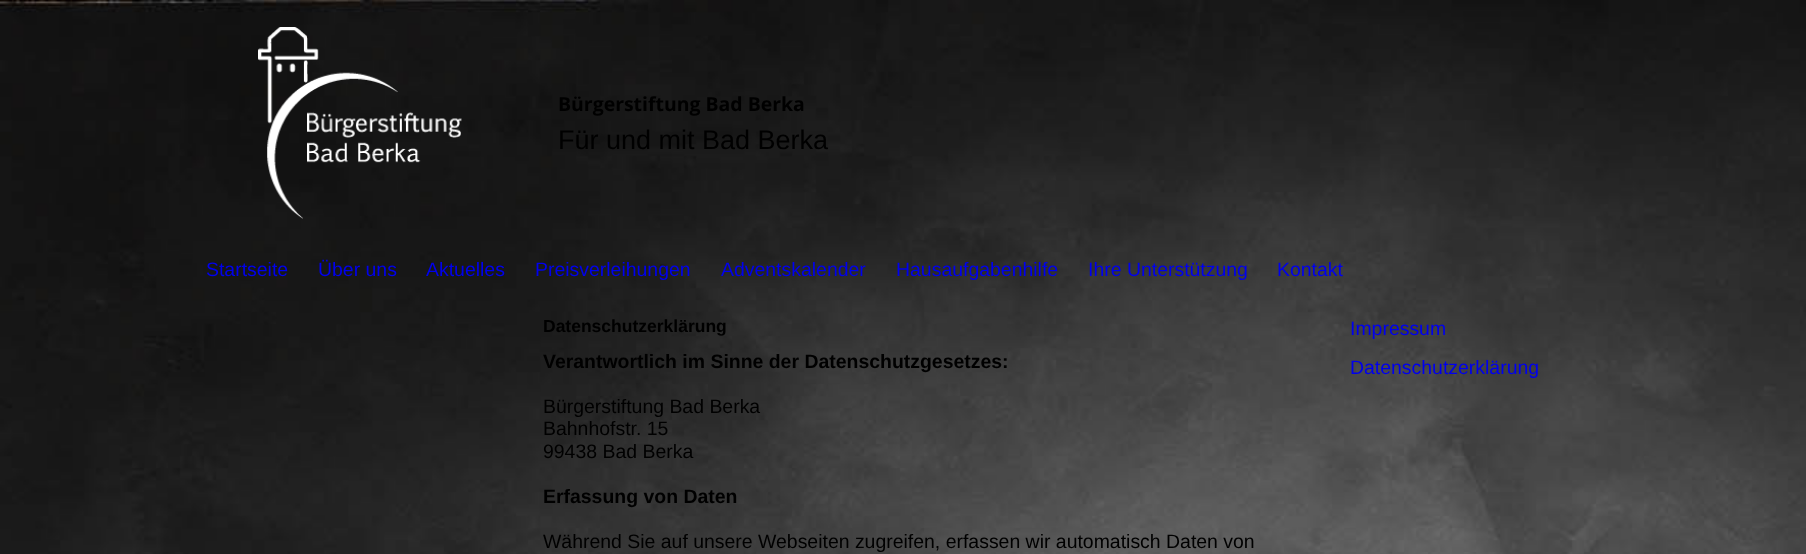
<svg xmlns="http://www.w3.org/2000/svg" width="1806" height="554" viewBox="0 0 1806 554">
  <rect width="100%" height="100%" fill="#ffffff"/>
  <image x="0" y="0" width="1806" height="554" href="img1.png"/>
  <image x="258" y="27" width="204" height="192" href="img2.png"/>
  <text x="558" y="111" font-family="Open Sans" font-size="19.45" font-weight="bold" fill="#000000">Bürgerstiftung Bad Berka</text>
  <text x="558" y="149" font-family="Liberation Sans" font-size="27" fill="#000000">Für und mit Bad Berka</text>
  <text x="206" y="276" font-family="Liberation Sans" font-size="19.45" fill="#0000ee">Startseite</text>
  <text x="318" y="276" font-family="Liberation Sans" font-size="19.45" fill="#0000ee">Über uns</text>
  <text x="426" y="276" font-family="Liberation Sans" font-size="19.45" fill="#0000ee">Aktuelles</text>
  <text x="535" y="276" font-family="Liberation Sans" font-size="19.45" fill="#0000ee">Preisverleihungen</text>
  <text x="721" y="276" font-family="Liberation Sans" font-size="19.45" fill="#0000ee">Adventskalender</text>
  <text x="896" y="276" font-family="Liberation Sans" font-size="19.45" fill="#0000ee">Hausaufgabenhilfe</text>
  <text x="1088" y="276" font-family="Liberation Sans" font-size="19.45" fill="#0000ee">Ihre Unterstützung</text>
  <text x="1277" y="276" font-family="Liberation Sans" font-size="19.45" fill="#0000ee">Kontakt</text>
  <text x="543" y="332" font-family="Liberation Sans" font-size="17.5" font-weight="bold" fill="#000000">Datenschutzerklärung</text>
  <text x="543" y="368" font-family="Liberation Sans" font-size="19.45" font-weight="bold" fill="#000000">Verantwortlich im Sinne der Datenschutzgesetzes:</text>
  <text x="543" y="413" font-family="Liberation Sans" font-size="19.45" fill="#000000">Bürgerstiftung Bad Berka</text>
  <text x="543" y="435" font-family="Liberation Sans" font-size="19.45" fill="#000000">Bahnhofstr. 15</text>
  <text x="543" y="458" font-family="Liberation Sans" font-size="19.45" fill="#000000">99438 Bad Berka</text>
  <text x="543" y="503" font-family="Liberation Sans" font-size="19.45" font-weight="bold" fill="#000000">Erfassung von Daten</text>
  <text x="543" y="548" font-family="Liberation Sans" font-size="19.45" fill="#000000">Während Sie auf unsere Webseiten zugreifen, erfassen wir automatisch Daten von</text>
  <text x="1350" y="335" font-family="Liberation Sans" font-size="19.45" fill="#0000ee">Impressum</text>
  <text x="1350" y="374" font-family="Liberation Sans" font-size="19.45" fill="#0000ee">Datenschutzerklärung</text>
</svg>
